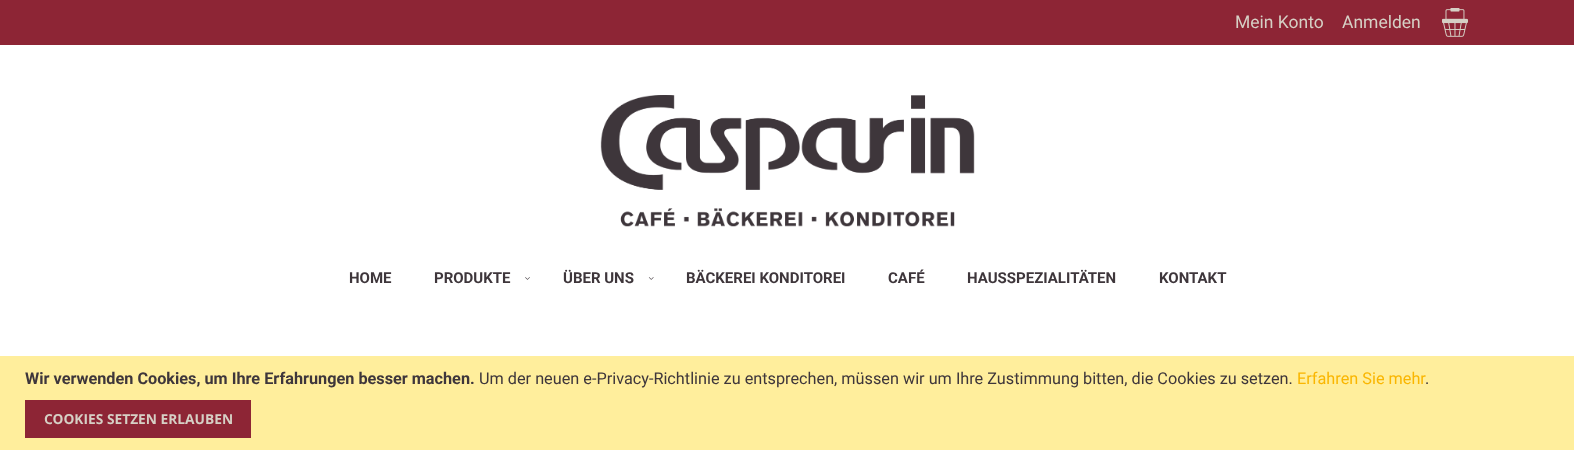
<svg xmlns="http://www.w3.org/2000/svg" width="1574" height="450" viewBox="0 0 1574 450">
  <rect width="100%" height="100%" fill="#ffffff"/>
  <rect x="0" y="0" width="1574" height="45" fill="#8d2535"/>
  <text x="1235" y="28" font-family="Roboto" font-size="17.5" fill="#d6d0c5">Mein Konto</text>
  <text x="1342" y="28" font-family="Roboto" font-size="17.5" fill="#d6d0c5">Anmelden</text>
  <image x="1442" y="8" width="26" height="29" href="img1.png"/>
  <image x="600" y="95" width="375" height="132" href="img2.png"/>
  <text x="349" y="283" font-family="Roboto" font-size="15" font-weight="bold" fill="#3e363b">HOME</text>
  <text x="434" y="283" font-family="Roboto" font-size="15" font-weight="bold" fill="#3e363b">PRODUKTE</text>
  <image x="525" y="277" width="5" height="3" href="img3.png"/>
  <text x="563" y="283" font-family="Roboto" font-size="15" font-weight="bold" fill="#3e363b">ÜBER UNS</text>
  <image x="648" y="277" width="6" height="3" href="img4.png"/>
  <text x="686" y="283" font-family="Roboto" font-size="15" font-weight="bold" fill="#3e363b">BÄCKEREI KONDITOREI</text>
  <text x="888" y="283" font-family="Roboto" font-size="15" font-weight="bold" fill="#3e363b">CAFÉ</text>
  <text x="967" y="283" font-family="Roboto" font-size="15" font-weight="bold" fill="#3e363b">HAUSSPEZIALITÄTEN</text>
  <text x="1159" y="283" font-family="Roboto" font-size="15" font-weight="bold" fill="#3e363b">KONTAKT</text>
  <rect x="0" y="356" width="1574" height="94" fill="#ffee9c"/>
  <text x="25" y="384" font-family="Roboto" font-size="16.25" font-weight="bold" fill="#3e363b">Wir verwenden Cookies, um Ihre Erfahrungen besser machen.</text>
  <text x="479" y="384" font-family="Roboto" font-size="16.25" fill="#3e363b">Um der neuen e-Privacy-Richtlinie zu entsprechen, müssen wir um Ihre Zustimmung bitten, die Cookies zu setzen.</text>
  <text x="1297" y="384" font-family="Roboto" font-size="16.25" fill="#fab600">Erfahren Sie mehr</text>
  <text x="1425" y="384" font-family="Roboto" font-size="16.25" fill="#3e363b">.</text>
  <rect x="25" y="400" width="226" height="38" fill="#8d2535"/>
  <text x="44" y="424" font-family="Open Sans" font-size="13.75" font-weight="bold" fill="#d6d0c5">COOKIES SETZEN ERLAUBEN</text>
</svg>
